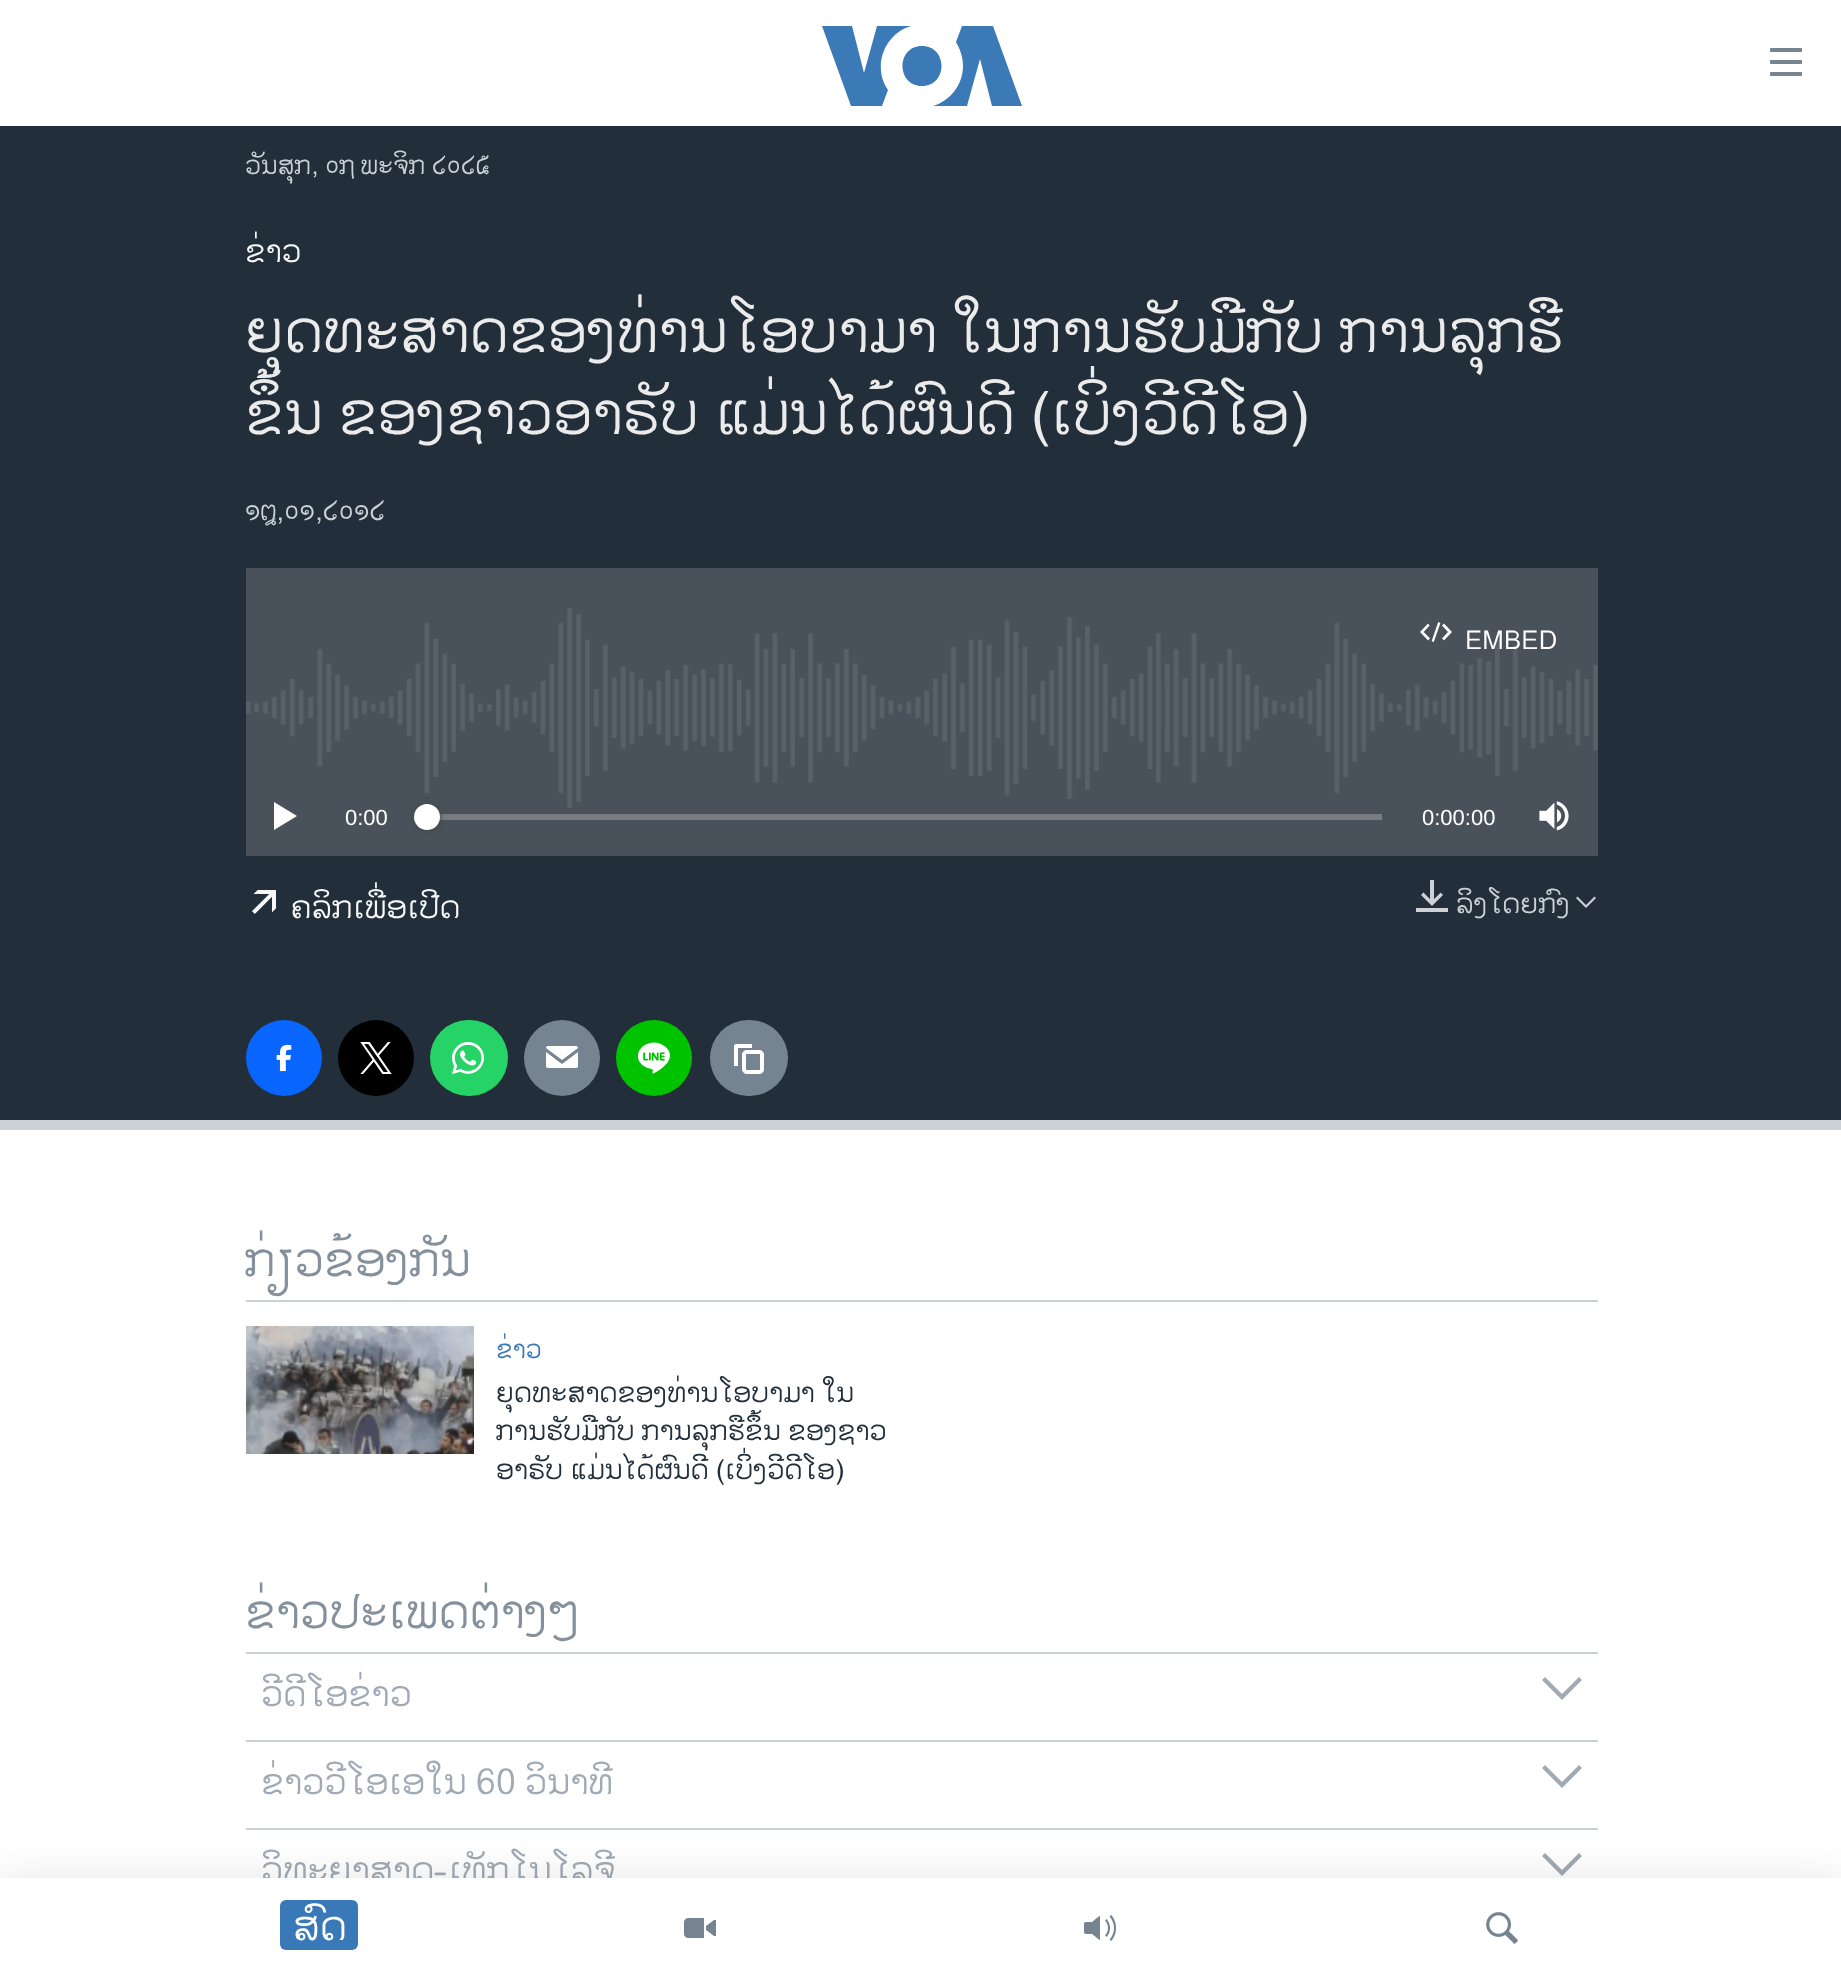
<svg xmlns="http://www.w3.org/2000/svg" width="1841" height="1978" viewBox="0 0 1841 1978">
  <defs>
    <filter id="blur1" x="-50%" y="-200%" width="200%" height="500%"><feGaussianBlur stdDeviation="3"/></filter>
    <filter id="blur2" x="-50%" y="-200%" width="200%" height="500%"><feGaussianBlur stdDeviation="20"/></filter>
  </defs>
  <rect width="100%" height="100%" fill="#ffffff"/>
  <rect x="0" y="126" width="1841" height="994" fill="#222f3a"/>
  <text x="245" y="174" font-family="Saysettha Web" font-size="26" fill="#cbd1d6">ວັນສຸກ, ໐໗ ພະຈິກ ໒໐໒໕</text>
  <rect x="0" y="1120" width="1841" height="10" fill="#cbd1d6"/>
  <text x="245" y="262" font-family="Saysettha Web" font-size="32" fill="#f6f7f8">ຂ່າວ</text>
  <text x="245" y="352" font-family="Saysettha Web" font-size="60.8" fill="#ebebeb">ຍຸດທະສາດຂອງທ່ານໂອບາມາ ໃນການຮັບມືກັບ ການລຸກຮື</text>
  <text x="245" y="434" font-family="Saysettha Web" font-size="60.8" fill="#ebebeb">ຂຶ້ນ ຂອງຊາວອາຣັບ ແມ່ນໄດ້ຜົນດີ (ເບິ່ງວີດີໂອ)</text>
  <text x="245" y="520" font-family="Saysettha Web" font-size="28" fill="#cbd1d6">໑໘,໐໑,໒໐໑໒</text>
  <rect x="246" y="568" width="1352" height="288" fill="#49525a"/>
  <image x="246" y="608" width="1352" height="200" href="img1.png"/>
  <image x="1420" y="622" width="32" height="20" href="img2.png"/>
  <text x="1465" y="649" font-family="Saysettha Web" font-size="26" fill="#ffffff">EMBED</text>
  <path d="M274 830L297 816L274 802Z" fill="#ffffff"/>
  <text x="345" y="825" font-family="Liberation Sans" font-size="22" fill="#ffffff">0:00</text>
  <rect x="439" y="814" width="943" height="6" fill="#777d83"/>
  <rect x="414" y="804" width="26" height="26" rx="13" fill="#414144" filter="url(#blur1)"/>
  <circle cx="427" cy="817" r="13" fill="#ffffff"/>
  <text x="1422" y="825" font-family="Liberation Sans" font-size="22" fill="#ffffff">0:00:00</text>
  <image x="1539" y="801" width="30" height="30" href="img3.png"/>
  <image x="252" y="890" width="24" height="24" href="img4.png"/>
  <text x="291" y="918" font-family="Saysettha Web" font-size="32" fill="#f6f7f8">ຄລິກເພື່ອເປີດ</text>
  <image x="1416" y="880" width="32" height="32" href="img5.png"/>
  <text x="1456" y="913" font-family="Saysettha Web" font-size="28" fill="#cbd1d6">ລິງໂດຍກົງ</text>
  <path d="M1576 898L1586 908L1596 898L1594.5 896.5L1586 905L1577.5 896.5Z" fill="#cbd1d6"/>
  <circle cx="284" cy="1058" r="38" fill="#0866ff"/>
  <image x="276" y="1044" width="16" height="28" href="img6.png"/>
  <circle cx="376" cy="1058" r="38" fill="#000000"/>
  <image x="360" y="1042" width="32" height="32" href="img7.png"/>
  <rect x="430" y="1020" width="78" height="76" rx="38" fill="#25d366"/>
  <image x="452" y="1042" width="32" height="32" href="img8.png"/>
  <circle cx="562" cy="1058" r="38" fill="#768492"/>
  <image x="546" y="1046" width="32" height="22" href="img9.png"/>
  <circle cx="654" cy="1058" r="38" fill="#00c300"/>
  <image x="638" y="1042" width="32" height="32" href="img10.png"/>
  <rect x="710" y="1020" width="78" height="76" rx="38" fill="#768492"/>
  <image x="734" y="1044" width="30" height="30" href="img11.png"/>
  <rect x="246" y="1300" width="1352" height="2" fill="#cbd1d6"/>
  <text x="245" y="1276" font-family="Saysettha Web" font-size="48" fill="#84919d">ກ່ຽວຂ້ອງກັນ</text>
  <image x="246" y="1326" width="228" height="128" href="img12.png"/>
  <text x="496" y="1358" font-family="Saysettha Web" font-size="26" fill="#3a79b7">ຂ່າວ</text>
  <text x="496" y="1402" font-family="Saysettha Web" font-size="28" fill="#222f3a">ຍຸດທະສາດຂອງທ່ານໂອບາມາ ໃນ</text>
  <text x="496" y="1440" font-family="Saysettha Web" font-size="28" fill="#222f3a">ການຮັບມືກັບ ການລຸກຮືຂຶ້ນ ຂອງຊາວ</text>
  <text x="496" y="1479" font-family="Saysettha Web" font-size="28" fill="#222f3a">ອາຣັບ ແມ່ນໄດ້ຜົນດີ (ເບິ່ງວີດີໂອ)</text>
  <rect x="246" y="1652" width="1352" height="2" fill="#cbd1d6"/>
  <text x="245" y="1628" font-family="Saysettha Web" font-size="48" fill="#84919d">ຂ່າວປະເພດຕ່າງໆ</text>
  <rect x="246" y="1740" width="1352" height="2" fill="#cbd1d6"/>
  <text x="261" y="1706" font-family="Saysettha Web" font-size="36" fill="#a1aab4">ວີດີໂອຂ່າວ</text>
  <path d="M1542 1680L1562 1700L1582 1680L1579 1677L1562 1694L1545 1677Z" fill="#a1aab4"/>
  <rect x="246" y="1828" width="1352" height="2" fill="#cbd1d6"/>
  <text x="261" y="1794" font-family="Saysettha Web" font-size="36" fill="#a1aab4">ຂ່າວວີໂອເອໃນ 60 ວິນາທີ</text>
  <path d="M1542 1768L1562 1788L1582 1768L1579 1765L1562 1782L1545 1765Z" fill="#a1aab4"/>
  <text x="261" y="1882" font-family="Saysettha Web" font-size="36" fill="#a1aab4">ວິທະຍາສາດ-ເທັກໂນໂລຈີ</text>
  <path d="M1542 1856L1562 1876L1582 1856L1579 1853L1562 1870L1545 1853Z" fill="#a1aab4"/>
  <path d="M888 90L882 106H851L822 26H852L864 73L877 26H911C884 34 872 67 888 90ZM922 46C896 46 896 86 922 86C948 86 948 46 922 46ZM963 66C963 85 950 101 933 106H967L980 59L992 106H1022L993 26H962L956 42C960 49 963 57 963 66Z" fill="#3b79b7"/>
  <image x="1770" y="48" width="32" height="28" href="img13.png"/>
  <rect x="0" y="1878" width="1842" height="100" fill="#000000" fill-opacity="0.1" filter="url(#blur2)"/>
  <rect x="0" y="1878" width="1841" height="100" fill="#ffffff"/>
  <rect x="280" y="1900" width="78" height="50" rx="6" fill="#3a79b7"/>
  <text x="293" y="1940" font-family="Saysettha Web" font-size="42" fill="#ffffff">ສົດ</text>
  <image x="684" y="1918" width="32" height="20" href="img14.png"/>
  <image x="1084" y="1915" width="32" height="26" href="img15.png"/>
  <image x="1486" y="1912" width="32" height="32" href="img16.png"/>
</svg>
